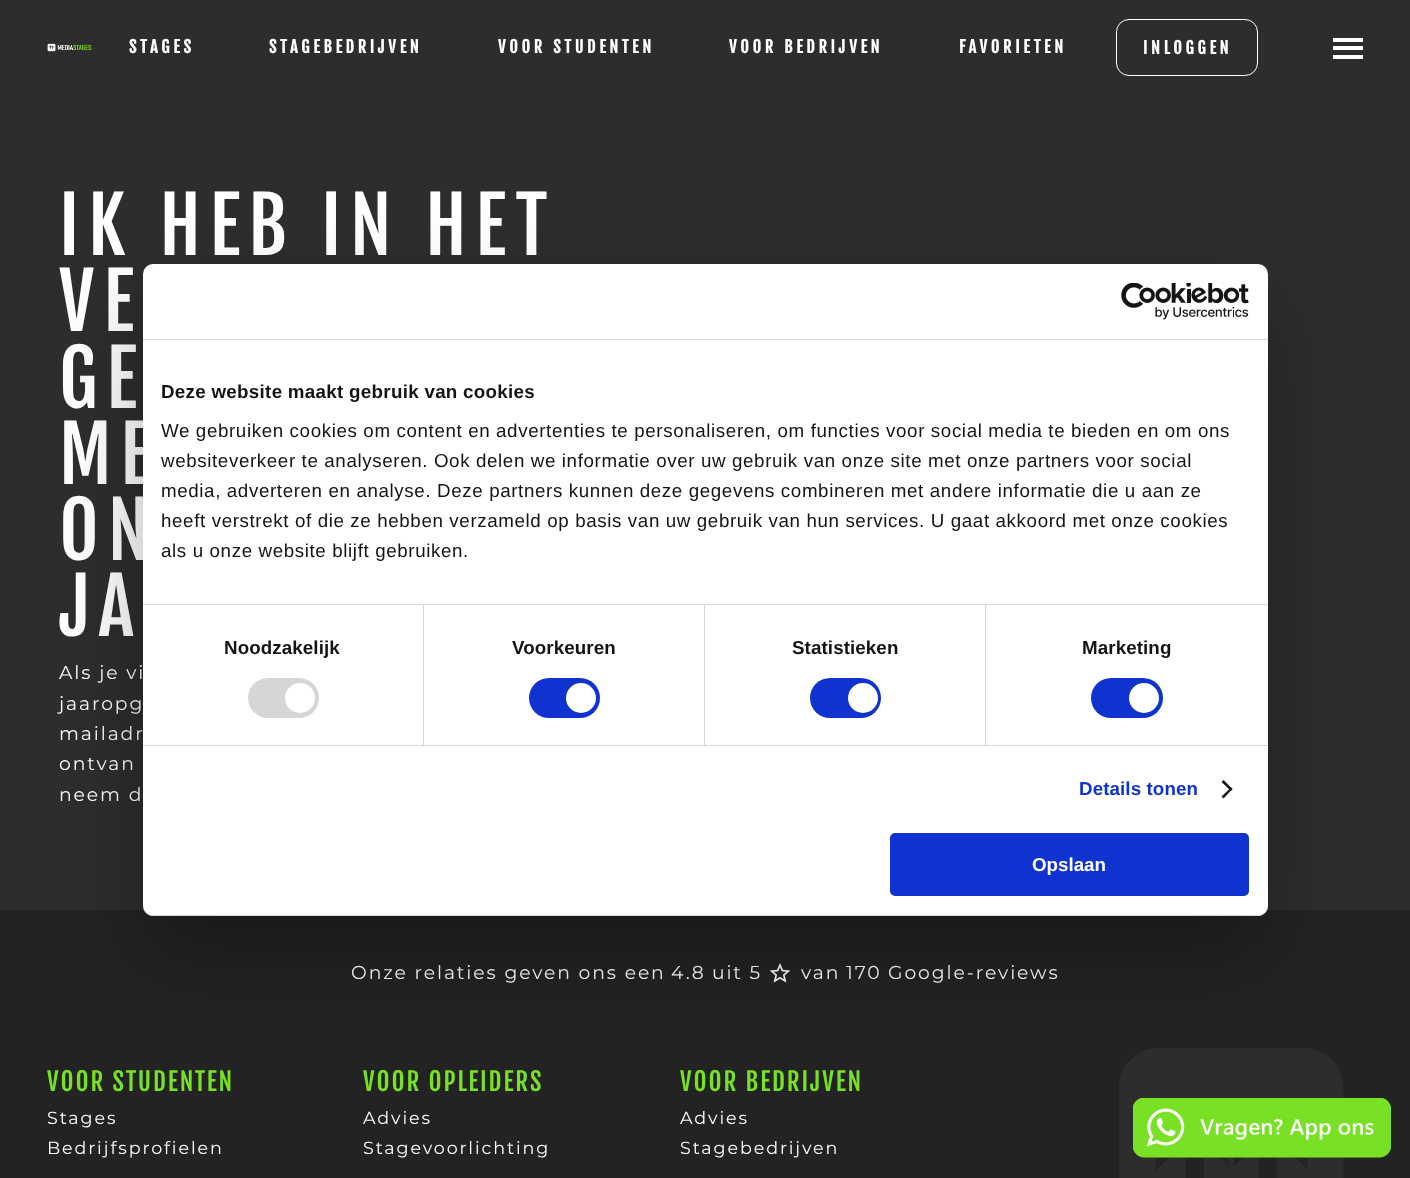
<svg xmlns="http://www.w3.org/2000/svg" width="1410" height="1178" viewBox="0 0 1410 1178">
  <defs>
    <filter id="blur1" x="-50%" y="-200%" width="200%" height="500%"><feGaussianBlur stdDeviation="42.5"/></filter>
    <clipPath id="clip1"><rect x="143" y="264" width="1125" height="652" rx="10"/></clipPath>
  </defs>
  <rect width="100%" height="100%" fill="#2d2d2d"/>
  <image x="47" y="43" width="45" height="9" href="img1.png"/>
  <text x="129" y="53" font-family="Fjalla One" font-size="16.25" font-weight="bold" letter-spacing="3.75" fill="#ffffff">STAGES</text>
  <text x="269" y="53" font-family="Fjalla One" font-size="16.25" font-weight="bold" letter-spacing="3.75" fill="#ffffff">STAGEBEDRIJVEN</text>
  <text x="498" y="53" font-family="Fjalla One" font-size="16.25" font-weight="bold" letter-spacing="3.75" fill="#ffffff">VOOR STUDENTEN</text>
  <text x="729" y="53" font-family="Fjalla One" font-size="16.25" font-weight="bold" letter-spacing="3.75" fill="#ffffff">VOOR BEDRIJVEN</text>
  <text x="959" y="53" font-family="Fjalla One" font-size="16.25" font-weight="bold" letter-spacing="3.75" fill="#ffffff">FAVORIETEN</text>
  <rect x="1116.5" y="19.5" width="141" height="56" rx="12.5" fill="none" stroke="#ffffff"/>
  <text x="1143" y="54" font-family="Fjalla One" font-size="16.25" font-weight="bold" letter-spacing="3.75" fill="#ffffff">INLOGGEN</text>
  <rect x="1333" y="38" width="30" height="4" fill="#ffffff"/>
  <rect x="1333" y="46" width="30" height="4" fill="#ffffff"/>
  <rect x="1333" y="55" width="30" height="4" fill="#ffffff"/>
  <text x="59" y="255" font-family="Fjalla One" font-size="76.25" letter-spacing="8.75" fill="#ffffff">IK HEB IN HET</text>
  <text x="59" y="331" font-family="Fjalla One" font-size="76.25" letter-spacing="8.75" fill="#ffffff">VE</text>
  <text x="59" y="408" font-family="Fjalla One" font-size="76.25" letter-spacing="8.75" fill="#ffffff">GE</text>
  <text x="59" y="484" font-family="Fjalla One" font-size="76.25" letter-spacing="8.75" fill="#ffffff">ME</text>
  <text x="59" y="560" font-family="Fjalla One" font-size="76.25" letter-spacing="8.75" fill="#ffffff">ON</text>
  <text x="59" y="636" font-family="Fjalla One" font-size="76.25" letter-spacing="8.75" fill="#ffffff">JA</text>
  <text x="59" y="679" font-family="Montserrat" font-size="18.75" letter-spacing="1.9" fill="#ffffff">Als je vi</text>
  <text x="59" y="710" font-family="Montserrat" font-size="18.75" letter-spacing="1.9" fill="#ffffff">jaaropg</text>
  <text x="59" y="740" font-family="Montserrat" font-size="18.75" letter-spacing="1.9" fill="#ffffff">mailadr</text>
  <text x="59" y="770" font-family="Montserrat" font-size="18.75" letter-spacing="1.9" fill="#ffffff">ontvan</text>
  <text x="59" y="801" font-family="Montserrat" font-size="18.75" letter-spacing="1.9" fill="#ffffff">neem d</text>
  <rect x="0" y="910" width="1410" height="268" fill="#232323"/>
  <text x="351" y="979" font-family="Montserrat" font-size="18.75" letter-spacing="1.9" fill="#ffffff">Onze relaties geven ons een</text>
  <text x="671" y="979" font-family="Montserrat" font-size="18.75" letter-spacing="1.9" fill="#ffffff">4.8</text>
  <text x="712" y="979" font-family="Montserrat" font-size="18.75" letter-spacing="1.9" fill="#ffffff">uit 5</text>
  <image x="769" y="963" width="22" height="20" href="img2.png"/>
  <text x="801" y="979" font-family="Montserrat" font-size="18.75" letter-spacing="1.9" fill="#ffffff">van</text>
  <text x="846" y="979" font-family="Montserrat" font-size="18.75" letter-spacing="1.9" fill="#ffffff">170</text>
  <text x="888" y="979" font-family="Montserrat" font-size="18.75" letter-spacing="1.9" fill="#ffffff">Google-reviews</text>
  <text x="47" y="1091" font-family="Fjalla One" font-size="25" letter-spacing="1.9" fill="#78e125">VOOR STUDENTEN</text>
  <text x="47" y="1124" font-family="Montserrat" font-size="17.5" letter-spacing="1.9" fill="#ffffff">Stages</text>
  <text x="47" y="1154" font-family="Montserrat" font-size="17.5" letter-spacing="1.9" fill="#ffffff">Bedrijfsprofielen</text>
  <text x="363" y="1091" font-family="Fjalla One" font-size="25" letter-spacing="1.9" fill="#78e125">VOOR OPLEIDERS</text>
  <text x="363" y="1124" font-family="Montserrat" font-size="17.5" letter-spacing="1.9" fill="#ffffff">Advies</text>
  <text x="363" y="1154" font-family="Montserrat" font-size="17.5" letter-spacing="1.9" fill="#ffffff">Stagevoorlichting</text>
  <text x="680" y="1091" font-family="Fjalla One" font-size="25" letter-spacing="1.9" fill="#78e125">VOOR BEDRIJVEN</text>
  <text x="680" y="1124" font-family="Montserrat" font-size="17.5" letter-spacing="1.9" fill="#ffffff">Advies</text>
  <text x="680" y="1154" font-family="Montserrat" font-size="17.5" letter-spacing="1.9" fill="#ffffff">Stagebedrijven</text>
  <image x="1119" y="1048" width="225" height="130" href="img3.png"/>
  <rect x="143" y="304" width="1125" height="652" rx="10" fill="#000000" fill-opacity="0.3" filter="url(#blur1)"/>
  <rect x="143" y="264" width="1125" height="652" rx="10" fill="#ffffff"/>
  <rect x="143" y="339" width="1125" height="1" fill="#d6d6d6"/>
  <image x="1121" y="283" width="128" height="37" href="img4.png"/>
  <rect x="143" y="604" width="1125" height="1" fill="#d6d6d6"/>
  <text x="161" y="398" font-family="Liberation Sans" font-size="18.75" font-weight="bold" letter-spacing="0.3" fill="#141414">Deze website maakt gebruik van cookies</text>
  <text x="161" y="437" font-family="Liberation Sans" font-size="18.75" letter-spacing="0.62" fill="#141414">We gebruiken cookies om content en advertenties te personaliseren, om functies voor social media te bieden en om ons</text>
  <text x="161" y="467" font-family="Liberation Sans" font-size="18.75" letter-spacing="0.62" fill="#141414">websiteverkeer te analyseren. Ook delen we informatie over uw gebruik van onze site met onze partners voor social</text>
  <text x="161" y="497" font-family="Liberation Sans" font-size="18.75" letter-spacing="0.62" fill="#141414">media, adverteren en analyse. Deze partners kunnen deze gegevens combineren met andere informatie die u aan ze</text>
  <text x="161" y="527" font-family="Liberation Sans" font-size="18.75" letter-spacing="0.62" fill="#141414">heeft verstrekt of die ze hebben verzameld op basis van uw gebruik van hun services. U gaat akkoord met onze cookies</text>
  <text x="161" y="557" font-family="Liberation Sans" font-size="18.75" letter-spacing="0.62" fill="#141414">als u onze website blijft gebruiken.</text>
  <rect x="143" y="745" width="1125" height="1" fill="#d6d6d6"/>
  <rect x="423" y="605" width="1" height="140" fill="#d6d6d6"/>
  <text x="224" y="654" font-family="Liberation Sans" font-size="18.75" font-weight="bold" letter-spacing="0.1" fill="#141414">Noodzakelijk</text>
  <rect x="248" y="678" width="71" height="40" rx="20" fill="#d6d6d6"/>
  <circle cx="300" cy="698" r="15" fill="#ffffff"/>
  <rect x="704" y="605" width="1" height="140" fill="#d6d6d6"/>
  <text x="512" y="654" font-family="Liberation Sans" font-size="18.75" font-weight="bold" letter-spacing="0.1" fill="#141414">Voorkeuren</text>
  <rect x="529" y="678" width="71" height="40" rx="20" fill="#1032cf"/>
  <circle cx="581" cy="698" r="15" fill="#ffffff"/>
  <rect x="985" y="605" width="1" height="140" fill="#d6d6d6"/>
  <text x="792" y="654" font-family="Liberation Sans" font-size="18.75" font-weight="bold" letter-spacing="0.1" fill="#141414">Statistieken</text>
  <rect x="810" y="678" width="71" height="40" rx="20" fill="#1032cf"/>
  <circle cx="863" cy="698" r="15" fill="#ffffff"/>
  <text x="1082" y="654" font-family="Liberation Sans" font-size="18.75" font-weight="bold" letter-spacing="0.1" fill="#141414">Marketing</text>
  <rect x="1091" y="678" width="72" height="40" rx="20" fill="#1032cf"/>
  <circle cx="1144" cy="698" r="15" fill="#ffffff"/>
  <text x="1079" y="795" font-family="Liberation Sans" font-size="18.75" font-weight="bold" letter-spacing="0.1" fill="#1032cf">Details tonen</text>
  <path d="M1223.5 780L1232.5 789L1231 791L1221.5 782Z" fill="#141414"/>
  <path d="M1231 787.5L1232.5 789L1223.5 798.5L1221.5 796.5Z" fill="#141414"/>
  <g clip-path="url(#clip1)">
    <rect x="143" y="915" width="1125" height="1" fill="#d6d6d6"/>
  </g>
  <rect x="891.5" y="834.5" width="356" height="60" rx="3.5" fill="#1032cf" stroke="#1032cf" stroke-width="3"/>
  <text x="1032" y="871" font-family="Liberation Sans" font-size="18.75" font-weight="bold" fill="#ffffff">Opslaan</text>
  <image x="1133" y="1098" width="258" height="60" href="img5.png"/>
</svg>
